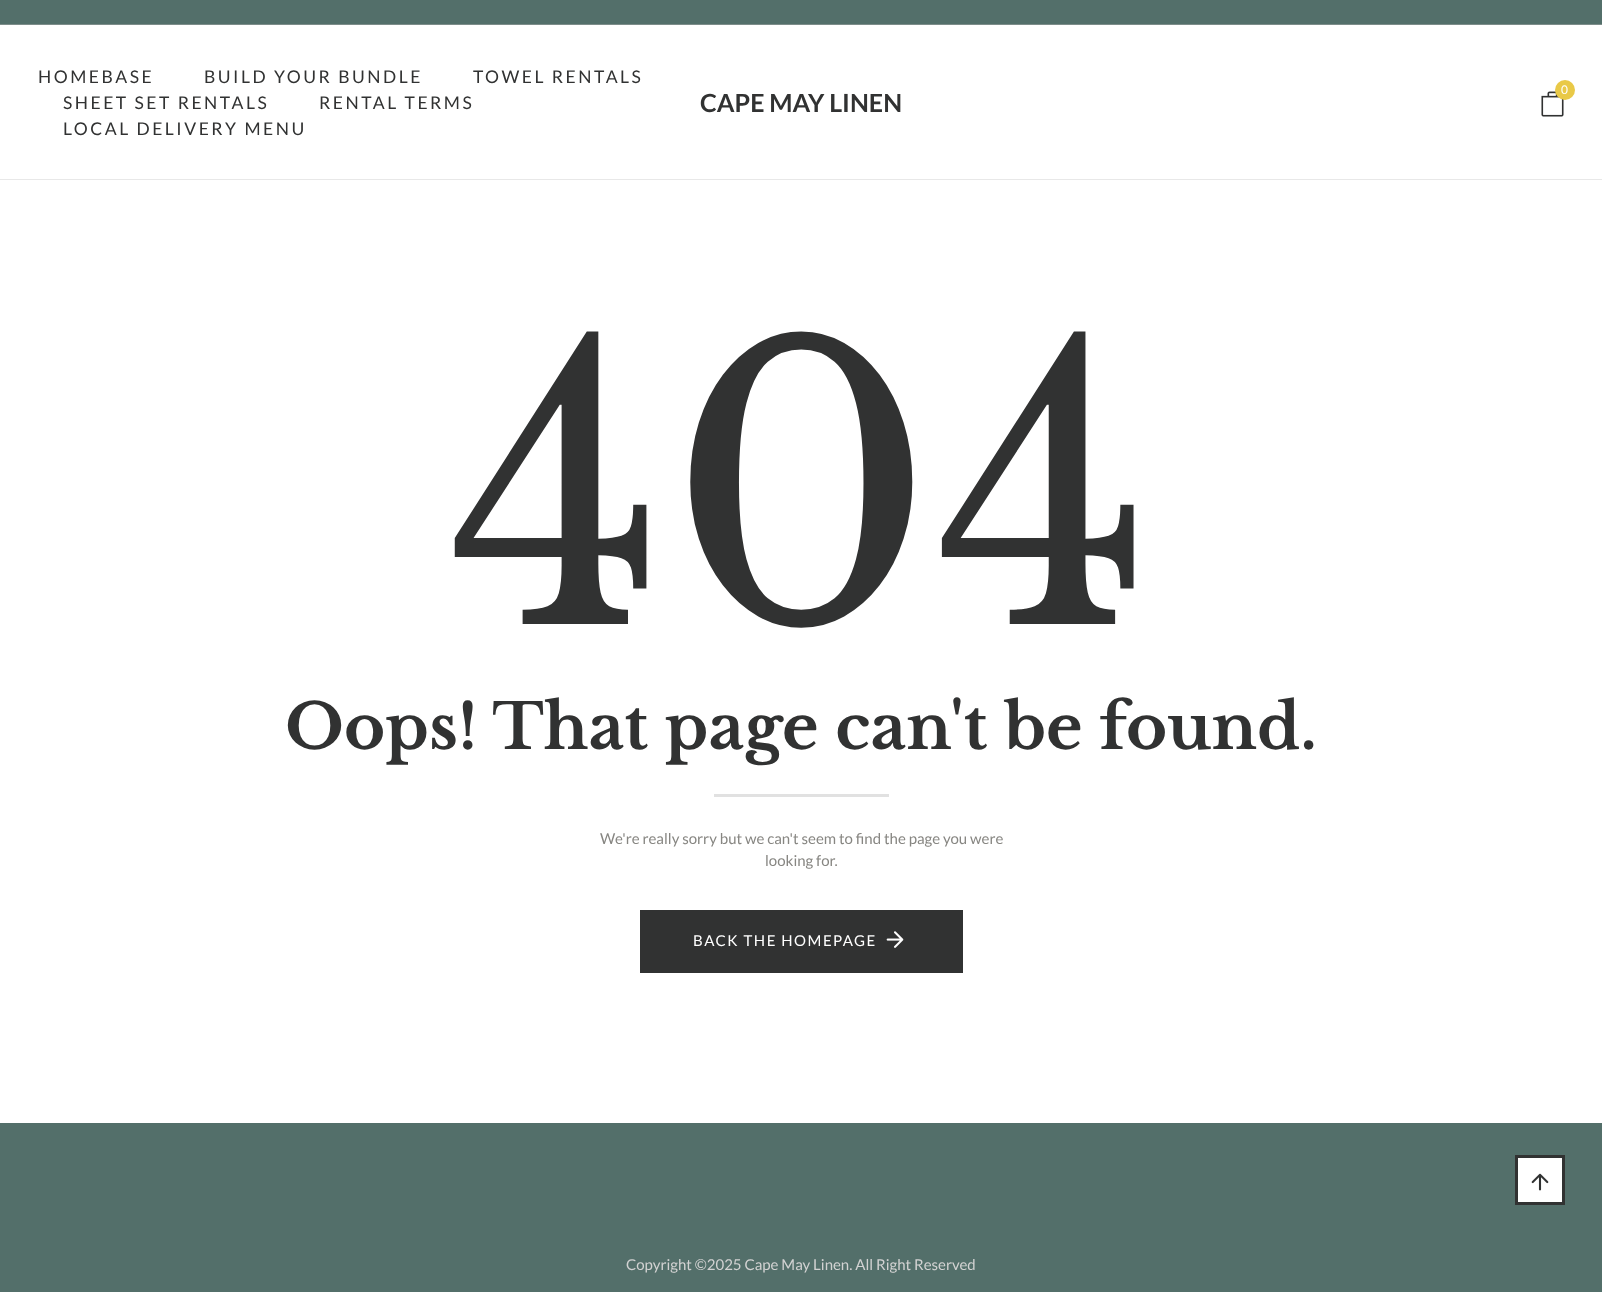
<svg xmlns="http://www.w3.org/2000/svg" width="1602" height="1292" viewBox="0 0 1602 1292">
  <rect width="100%" height="100%" fill="#ffffff"/>
  <rect x="0" y="0" width="1602" height="24" fill="#536f6a"/>
  <rect x="0" y="24" width="1602" height="1" fill="#7d8d8a"/>
  <rect x="0" y="179" width="1602" height="1" fill="#e8e8e8"/>
  <text x="38" y="83" font-family="Lato" font-size="17.5" letter-spacing="2.5" fill="#313232">HOMEBASE</text>
  <text x="204" y="83" font-family="Lato" font-size="17.5" letter-spacing="2.5" fill="#313232">BUILD YOUR BUNDLE</text>
  <text x="473" y="83" font-family="Lato" font-size="17.5" letter-spacing="2.5" fill="#313232">TOWEL RENTALS</text>
  <text x="63" y="109" font-family="Lato" font-size="17.5" letter-spacing="2.5" fill="#313232">SHEET SET RENTALS</text>
  <text x="319" y="109" font-family="Lato" font-size="17.5" letter-spacing="2.5" fill="#313232">RENTAL TERMS</text>
  <text x="63" y="135" font-family="Lato" font-size="17.5" letter-spacing="2.5" fill="#313232">LOCAL DELIVERY MENU</text>
  <image x="1541" y="91" width="23" height="26" href="img1.png"/>
  <circle cx="1565" cy="90" r="10" fill="#e9c947"/>
  <text x="1561" y="94" font-family="Lato" font-size="12" fill="#ffffff">0</text>
  <text x="700" y="112" font-family="Lato" font-size="25" font-weight="bold" fill="#313232">CAPE MAY LINEN</text>
  <text x="448" y="624" font-family="Libre Baskerville" font-size="375" fill="#313232">404</text>
  <text x="285" y="749" font-family="Libre Baskerville" font-size="62.5" font-weight="bold" fill="#313232">Oops! That page can't be found.</text>
  <rect x="714" y="794" width="175" height="3" fill="#e1e1e1"/>
  <text x="600" y="844" font-family="Lato" font-size="15" fill="#878682">We're really sorry but we can't seem to find the page you were</text>
  <text x="765" y="866" font-family="Lato" font-size="15" fill="#878682">looking for.</text>
  <rect x="640" y="910" width="323" height="63" fill="#313232"/>
  <text x="693" y="946" font-family="Lato" font-size="15" letter-spacing="1.5" fill="#ffffff">BACK THE HOMEPAGE</text>
  <image x="886" y="931" width="18" height="17" href="img2.png"/>
  <rect x="0" y="1123" width="1602" height="169" fill="#536f6a"/>
  <rect x="1516.5" y="1156.5" width="47" height="47" fill="#ffffff" stroke="#313232" stroke-width="3"/>
  <image x="1531" y="1173" width="18" height="18" href="img3.png"/>
  <text x="626" y="1270" font-family="Lato" font-size="15" fill="#d2d2d2">Copyright ©2025 Cape May Linen. All Right Reserved</text>
</svg>
